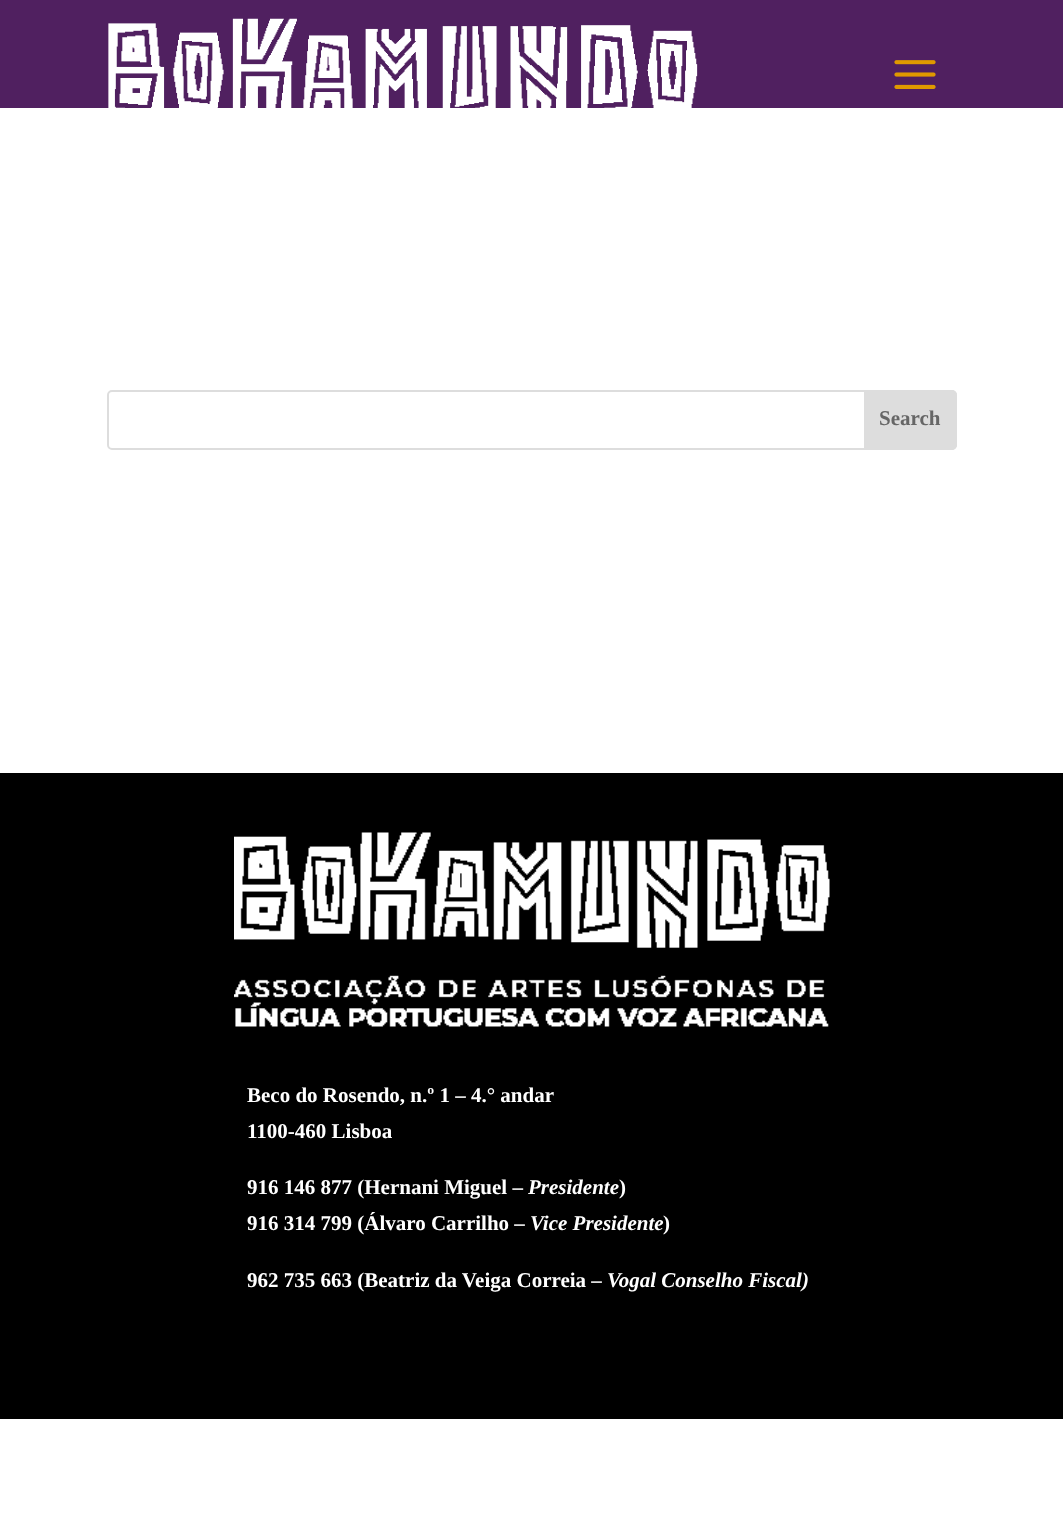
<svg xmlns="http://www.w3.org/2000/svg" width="1063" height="1530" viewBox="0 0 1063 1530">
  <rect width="100%" height="100%" fill="#ffffff"/>
  <rect x="0" y="0" width="1063" height="108" fill="#502060"/>
  <image x="108" y="18" width="590" height="90" href="img1.png"/>
  <image x="894" y="60" width="42" height="29" href="img2.png"/>
  <rect x="108" y="391" width="848" height="58" rx="4" fill="none" stroke="#dddddd" stroke-width="2"/>
  <path d="M865 391H952C954 391 956 393 956 395V445C956 447 954 449 952 449H865Z" fill="#dddddd" stroke="#dddddd" stroke-width="2"/>
  <text x="879" y="425" font-family="Liberation Serif" font-size="21" font-weight="bold" fill="#666666">Search</text>
  <rect x="0" y="773" width="1063" height="646" fill="#000000"/>
  <image x="234" y="832" width="596" height="195" href="img3.png"/>
  <text x="247" y="1102" font-family="Liberation Serif" font-size="21" font-weight="bold" fill="#ffffff">Beco do Rosendo, n.º 1 – 4.° andar</text>
  <text x="247" y="1138" font-family="Liberation Serif" font-size="21" font-weight="bold" fill="#ffffff">1100-460 Lisboa</text>
  <text x="247" y="1194" font-family="Liberation Serif" font-size="21" font-weight="bold" fill="#ffffff">916 146 877 (Hernani Miguel –</text>
  <text x="528" y="1194" font-family="Liberation Serif" font-size="21" font-weight="bold" font-style="italic" fill="#ffffff">Presidente</text>
  <text x="619" y="1194" font-family="Liberation Serif" font-size="21" font-weight="bold" fill="#ffffff">)</text>
  <text x="247" y="1230" font-family="Liberation Serif" font-size="21" font-weight="bold" fill="#ffffff">916 314 799 (Álvaro Carrilho –</text>
  <text x="530" y="1230" font-family="Liberation Serif" font-size="21" font-weight="bold" font-style="italic" fill="#ffffff">Vice Presidente</text>
  <text x="663" y="1230" font-family="Liberation Serif" font-size="21" font-weight="bold" fill="#ffffff">)</text>
  <text x="247" y="1287" font-family="Liberation Serif" font-size="21" font-weight="bold" fill="#ffffff">962 735 663 (Beatriz da Veiga Correia –</text>
  <text x="607" y="1287" font-family="Liberation Serif" font-size="21" font-weight="bold" font-style="italic" fill="#ffffff">Vogal Conselho Fiscal)</text>
</svg>
